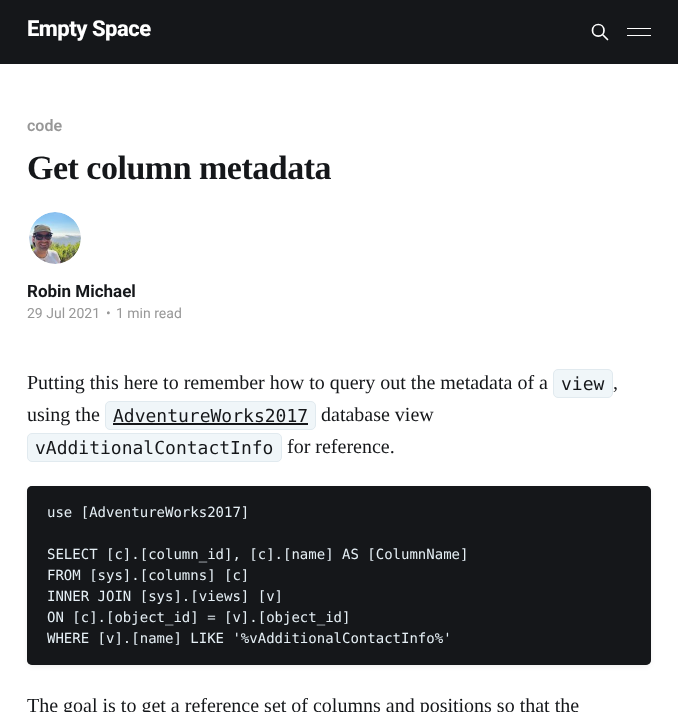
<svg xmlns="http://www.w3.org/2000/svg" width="678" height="712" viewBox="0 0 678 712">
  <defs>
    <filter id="blur1" x="-50%" y="-200%" width="200%" height="500%"><feGaussianBlur stdDeviation="0.5"/></filter>
    <filter id="blur2" x="-50%" y="-200%" width="200%" height="500%"><feGaussianBlur stdDeviation="3"/></filter>
  </defs>
  <rect width="100%" height="100%" fill="#ffffff"/>
  <rect x="0" y="0" width="678" height="64" fill="#15171a"/>
  <text x="27" y="36" font-family="Roboto" font-size="22" font-weight="800" letter-spacing="-0.5" fill="#ffffff">Empty Space</text>
  <path d="M607.5 39.5L602.5 34.5M604 30.5C604 38 592.5 38 592.5 30.5C592.5 22.5 604 22.5 604 30.5Z" fill="none" stroke="#ffffff" stroke-width="1.7" stroke-linecap="round" stroke-linejoin="round"/>
  <rect x="627" y="28" width="24" height="1" fill="#ffffff"/>
  <rect x="627" y="35" width="24" height="1" fill="#ffffff"/>
  <text x="27" y="131" font-family="Roboto" font-size="16" font-weight="600" fill="#979797">code</text>
  <text x="27" y="179" font-family="Liberation Serif" font-size="34" font-weight="bold" letter-spacing="-0.5" fill="#15171a">Get column metadata</text>
  <image x="29" y="212" width="52" height="52" href="img1.png"/>
  <text x="27" y="297" font-family="Roboto" font-size="17" font-weight="bold" fill="#15171a">Robin Michael</text>
  <text x="27" y="318" font-family="Roboto" font-size="14" fill="#979797">29 Jul 2021</text>
  <text x="106" y="318" font-family="Roboto" font-size="14" fill="#979797">•</text>
  <text x="116" y="318" font-family="Roboto" font-size="14" fill="#979797">1 min read</text>
  <text x="27" y="389" font-family="Liberation Serif" font-size="20" fill="#15171a">Putting this here to remember how to query out the metadata of a</text>
  <rect x="553.5" y="369.5" width="59" height="28" rx="4.5" fill="#f0f6f9" stroke="#e1eaef"/>
  <text x="561" y="390" font-family="DejaVu Sans Mono" font-size="18" fill="#15171a">view</text>
  <text x="613" y="389" font-family="Liberation Serif" font-size="20" fill="#15171a">,</text>
  <text x="27" y="421" font-family="Liberation Serif" font-size="20" fill="#15171a">using the</text>
  <rect x="105.5" y="401.5" width="210" height="28" rx="4.5" fill="#f0f6f9" stroke="#e1eaef"/>
  <text x="113" y="422" font-family="DejaVu Sans Mono" font-size="18" fill="#15171a">AdventureWorks2017</text>
  <rect x="113" y="423" width="195" height="2" fill="#15171a"/>
  <text x="321" y="421" font-family="Liberation Serif" font-size="20" fill="#15171a">database view</text>
  <rect x="27.5" y="433.5" width="254" height="28" rx="4.5" fill="#f0f6f9" stroke="#e1eaef"/>
  <text x="35" y="454" font-family="DejaVu Sans Mono" font-size="18" fill="#15171a">vAdditionalContactInfo</text>
  <text x="287" y="453" font-family="Liberation Serif" font-size="20" fill="#15171a">for reference.</text>
  <rect x="27" y="486" width="624" height="179" rx="5" fill="#000000" fill-opacity="0.4" filter="url(#blur1)"/>
  <rect x="29" y="490" width="620" height="175" rx="3" fill="#000000" fill-opacity="0.1" filter="url(#blur2)"/>
  <rect x="27" y="486" width="624" height="179" rx="5" fill="#15171a"/>
  <text x="47" y="517" font-family="DejaVu Sans Mono" font-size="14" fill="#e5eff5">use [AdventureWorks2017]</text>
  <text x="47" y="559" font-family="DejaVu Sans Mono" font-size="14" fill="#e5eff5">SELECT [c].[column_id], [c].[name] AS [ColumnName]</text>
  <text x="47" y="580" font-family="DejaVu Sans Mono" font-size="14" fill="#e5eff5">FROM [sys].[columns] [c]</text>
  <text x="47" y="601" font-family="DejaVu Sans Mono" font-size="14" fill="#e5eff5">INNER JOIN [sys].[views] [v]</text>
  <text x="47" y="622" font-family="DejaVu Sans Mono" font-size="14" fill="#e5eff5">ON [c].[object_id] = [v].[object_id]</text>
  <text x="47" y="643" font-family="DejaVu Sans Mono" font-size="14" fill="#e5eff5">WHERE [v].[name] LIKE '%vAdditionalContactInfo%'</text>
  <text x="27" y="712" font-family="Liberation Serif" font-size="20" fill="#15171a">The goal is to get a reference set of columns and positions so that the</text>
</svg>
